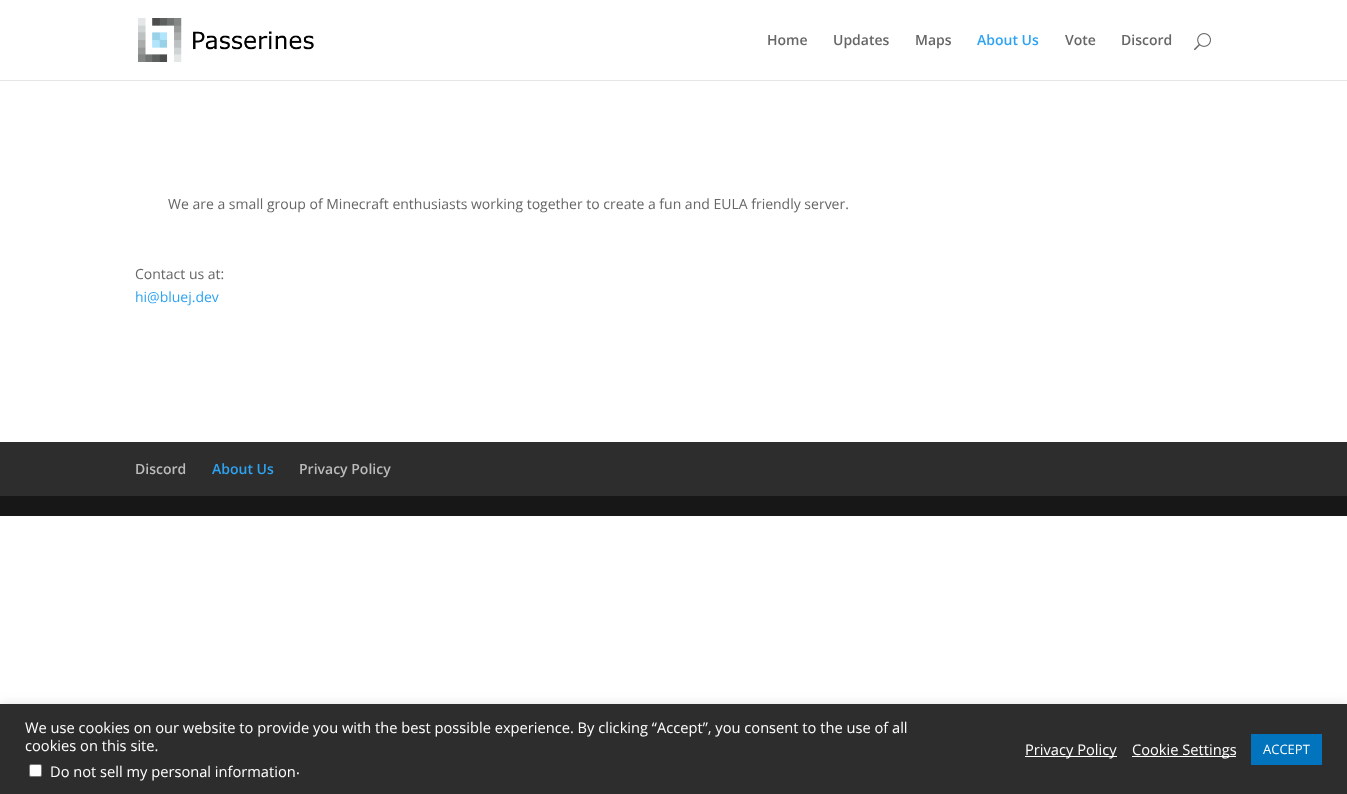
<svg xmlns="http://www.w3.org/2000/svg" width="1347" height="794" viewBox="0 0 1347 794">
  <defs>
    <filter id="blur1" x="-50%" y="-200%" width="200%" height="500%"><feGaussianBlur stdDeviation="5"/></filter>
  </defs>
  <rect width="100%" height="100%" fill="#ffffff"/>
  <rect x="0" y="80" width="1347" height="1" fill="#e6e6e6"/>
  <image x="138" y="18" width="176" height="44" href="img1.png"/>
  <text x="767" y="45" font-family="Open Sans" font-size="14" font-weight="600" fill="#666666">Home</text>
  <text x="833" y="45" font-family="Open Sans" font-size="14" font-weight="600" fill="#666666">Updates</text>
  <text x="915" y="45" font-family="Open Sans" font-size="14" font-weight="600" fill="#666666">Maps</text>
  <text x="977" y="45" font-family="Open Sans" font-size="14" font-weight="600" fill="#2ea3f2">About Us</text>
  <text x="1065" y="45" font-family="Open Sans" font-size="14" font-weight="600" fill="#666666">Vote</text>
  <text x="1121" y="45" font-family="Open Sans" font-size="14" font-weight="600" fill="#666666">Discord</text>
  <image x="1194" y="33" width="17" height="18" href="img2.png"/>
  <text x="168" y="209" font-family="Open Sans" font-size="14" fill="#666666">We are a small group of Minecraft enthusiasts working together to create a fun and EULA friendly server.</text>
  <text x="135" y="279" font-family="Open Sans" font-size="14" fill="#666666">Contact us at:</text>
  <text x="135" y="302" font-family="Open Sans" font-size="14" fill="#2ea3f2">hi@bluej.dev</text>
  <rect x="0" y="442" width="1347" height="54" fill="#2d2d2d"/>
  <text x="135" y="474" font-family="Open Sans" font-size="14" font-weight="600" fill="#bbbbbb">Discord</text>
  <text x="212" y="474" font-family="Open Sans" font-size="14" font-weight="600" fill="#2ea3f2">About Us</text>
  <text x="299" y="474" font-family="Open Sans" font-size="14" font-weight="600" fill="#bbbbbb">Privacy Policy</text>
  <rect x="0" y="496" width="1347" height="20" fill="#171717"/>
  <rect x="0" y="703" width="1347" height="90" fill="#acabab" fill-opacity="0.3" filter="url(#blur1)"/>
  <rect x="0" y="704" width="1347" height="90" fill="#2d2d2d"/>
  <text x="25" y="733" font-family="Open Sans" font-size="14.67" fill="#ffffff">We use cookies on our website to provide you with the best possible experience. By clicking “Accept”, you consent to the use of all</text>
  <text x="25" y="751" font-family="Open Sans" font-size="14.67" fill="#ffffff">cookies on this site.</text>
  <rect x="29.5" y="764.5" width="12" height="12" rx="1.5" fill="#ffffff" stroke="#767676"/>
  <text x="50" y="777" font-family="Open Sans" font-size="14.67" fill="#ffffff">Do not sell my personal information</text>
  <text x="296" y="774" font-family="Open Sans" font-size="14.67" fill="#ffffff">.</text>
  <rect x="1025" y="756" width="92" height="1" fill="#ffffff"/>
  <text x="1025" y="755" font-family="Open Sans" font-size="14.67" fill="#ffffff">Privacy Policy</text>
  <rect x="1132" y="756" width="104" height="1" fill="#ffffff"/>
  <text x="1132" y="755" font-family="Open Sans" font-size="14.67" fill="#ffffff">Cookie Settings</text>
  <rect x="1251" y="734" width="71" height="31" fill="#0274be"/>
  <text x="1263" y="754" font-family="Open Sans" font-size="13" fill="#ffffff">ACCEPT</text>
</svg>
